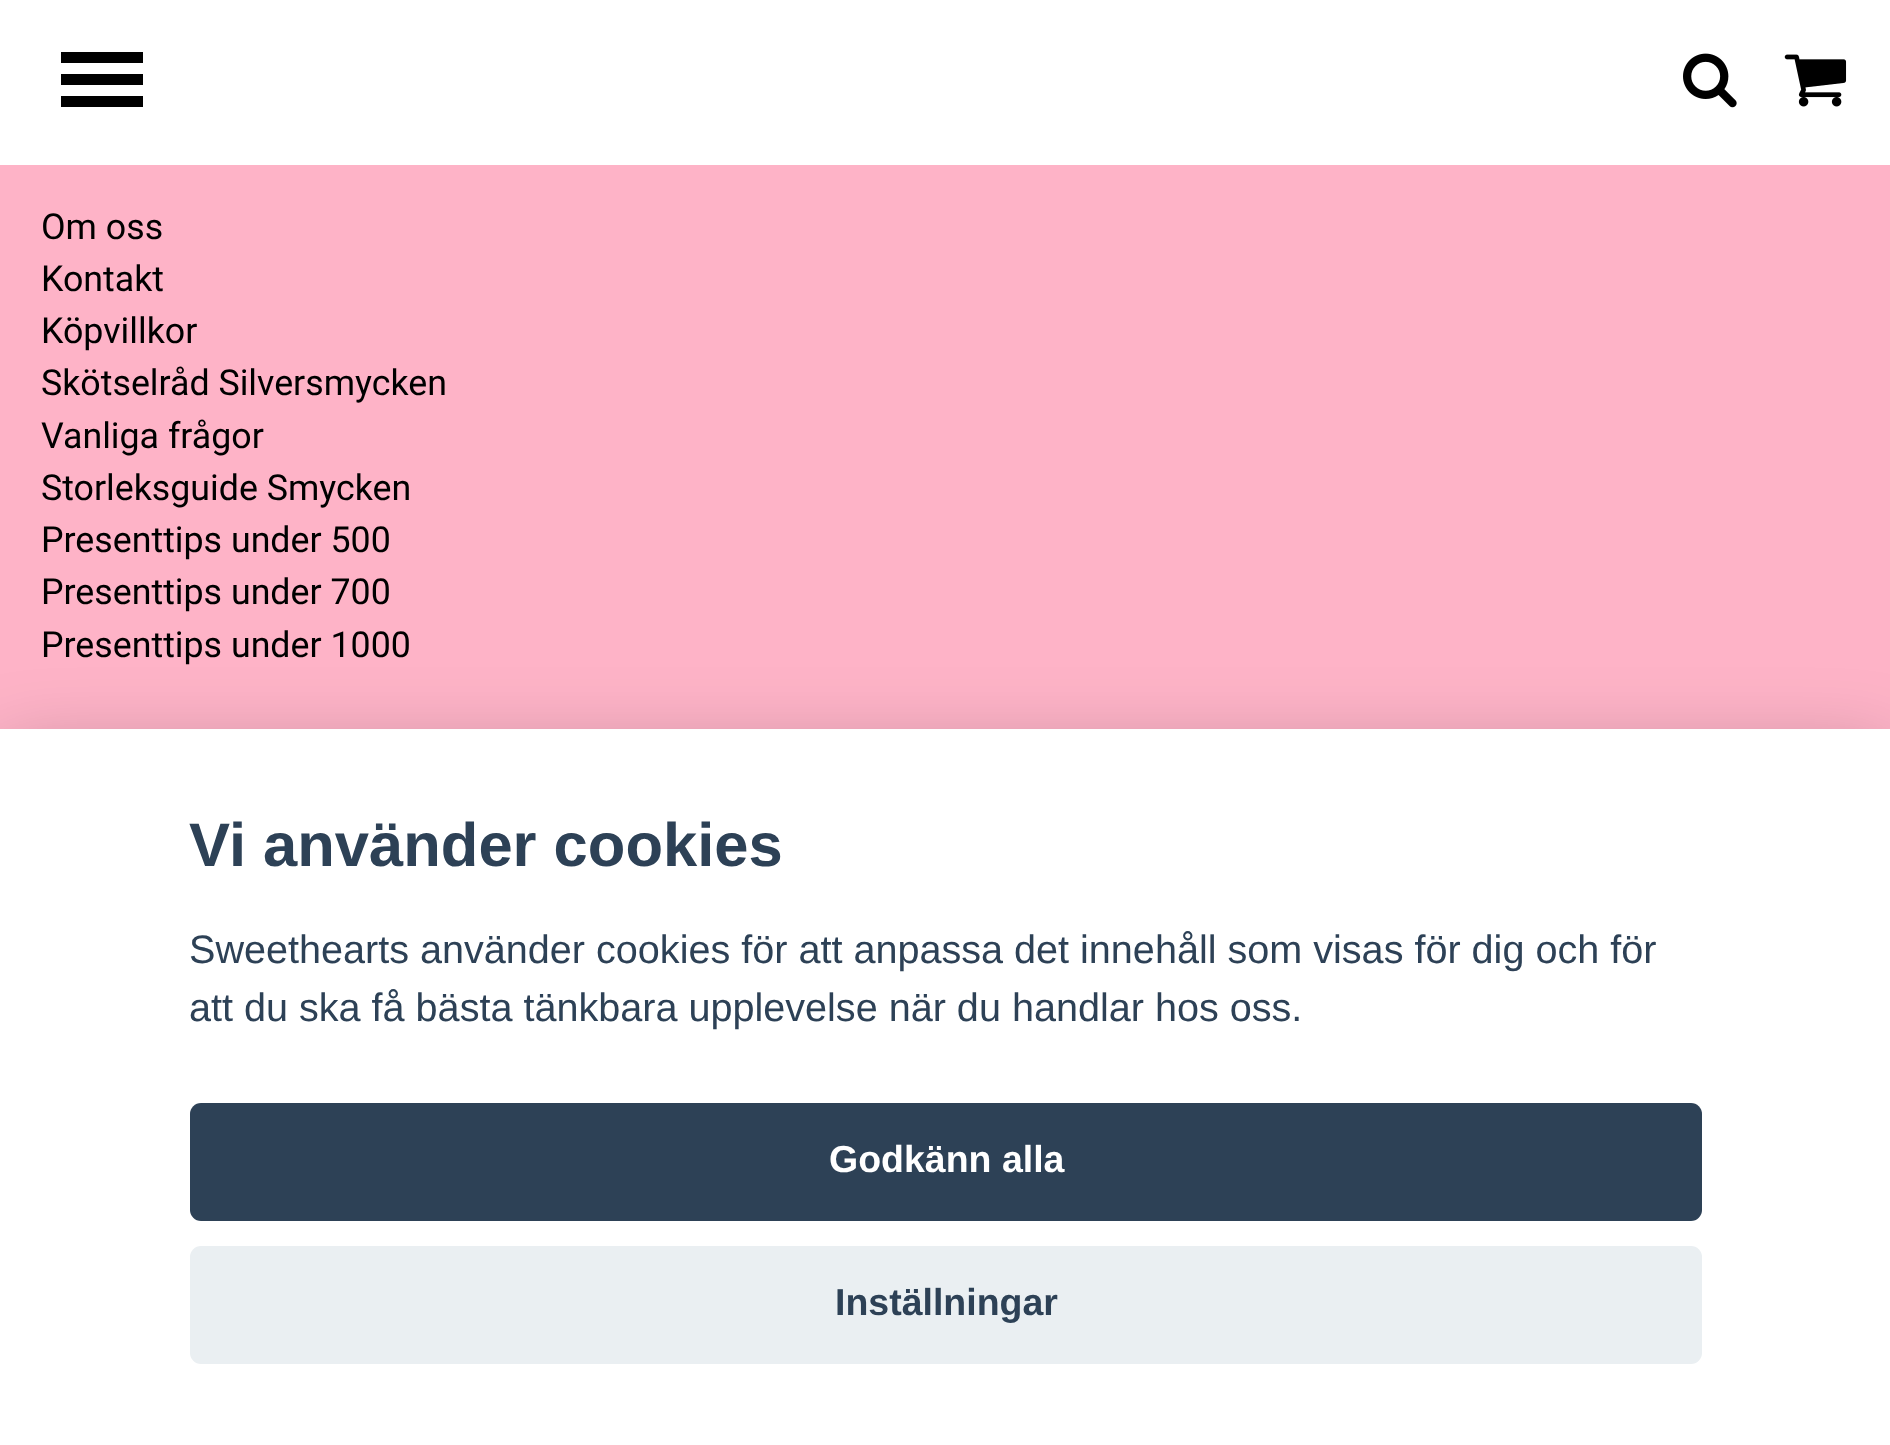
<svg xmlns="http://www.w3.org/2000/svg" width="1890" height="1445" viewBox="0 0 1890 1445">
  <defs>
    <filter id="blur1" x="-50%" y="-200%" width="200%" height="500%"><feGaussianBlur stdDeviation="41"/></filter>
  </defs>
  <rect width="100%" height="100%" fill="#feb3c7"/>
  <rect x="0" y="0" width="1890" height="165" fill="#ffffff"/>
  <rect x="61" y="74" width="82" height="11" fill="#000000"/>
  <rect x="61" y="52" width="82" height="11" fill="#000000"/>
  <rect x="61" y="96" width="82" height="11" fill="#000000"/>
  <image x="1683" y="53" width="54" height="55" href="img1.png"/>
  <image x="1784" y="54" width="63" height="53" href="img2.png"/>
  <text x="41" y="239" font-family="Roboto" font-size="35.75" fill="#000000">Om oss</text>
  <text x="41" y="291" font-family="Roboto" font-size="35.75" fill="#000000">Kontakt</text>
  <text x="41" y="343" font-family="Roboto" font-size="35.75" fill="#000000">Köpvillkor</text>
  <text x="41" y="395" font-family="Roboto" font-size="35.75" fill="#000000">Skötselråd Silversmycken</text>
  <text x="41" y="448" font-family="Roboto" font-size="35.75" fill="#000000">Vanliga frågor</text>
  <text x="41" y="500" font-family="Roboto" font-size="35.75" fill="#000000">Storleksguide Smycken</text>
  <text x="41" y="552" font-family="Roboto" font-size="35.75" fill="#000000">Presenttips under 500</text>
  <text x="41" y="604" font-family="Roboto" font-size="35.75" fill="#000000">Presenttips under 700</text>
  <text x="41" y="657" font-family="Roboto" font-size="35.75" fill="#000000">Presenttips under 1000</text>
  <rect x="0" y="756" width="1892" height="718" fill="#020203" fill-opacity="0.28" filter="url(#blur1)"/>
  <rect x="0" y="729" width="1890" height="716" fill="#ffffff"/>
  <text x="189" y="866" font-family="Liberation Sans" font-size="61.5" font-weight="bold" fill="#2d4156">Vi använder cookies</text>
  <text x="189" y="963" font-family="Liberation Sans" font-size="39.6" fill="#2d4156">Sweethearts använder cookies för att anpassa det innehåll som visas för dig och för</text>
  <text x="189" y="1021" font-family="Liberation Sans" font-size="39.6" fill="#2d4156">att du ska få bästa tänkbara upplevelse när du handlar hos oss.</text>
  <rect x="190" y="1103" width="1512" height="118" rx="11" fill="#2d4156"/>
  <text x="829" y="1172" font-family="Liberation Sans" font-size="37.5" font-weight="bold" fill="#ffffff">Godkänn alla</text>
  <rect x="190" y="1246" width="1512" height="118" rx="11" fill="#eaeff2"/>
  <text x="835" y="1315" font-family="Liberation Sans" font-size="37.5" font-weight="bold" fill="#2d4156">Inställningar</text>
</svg>
